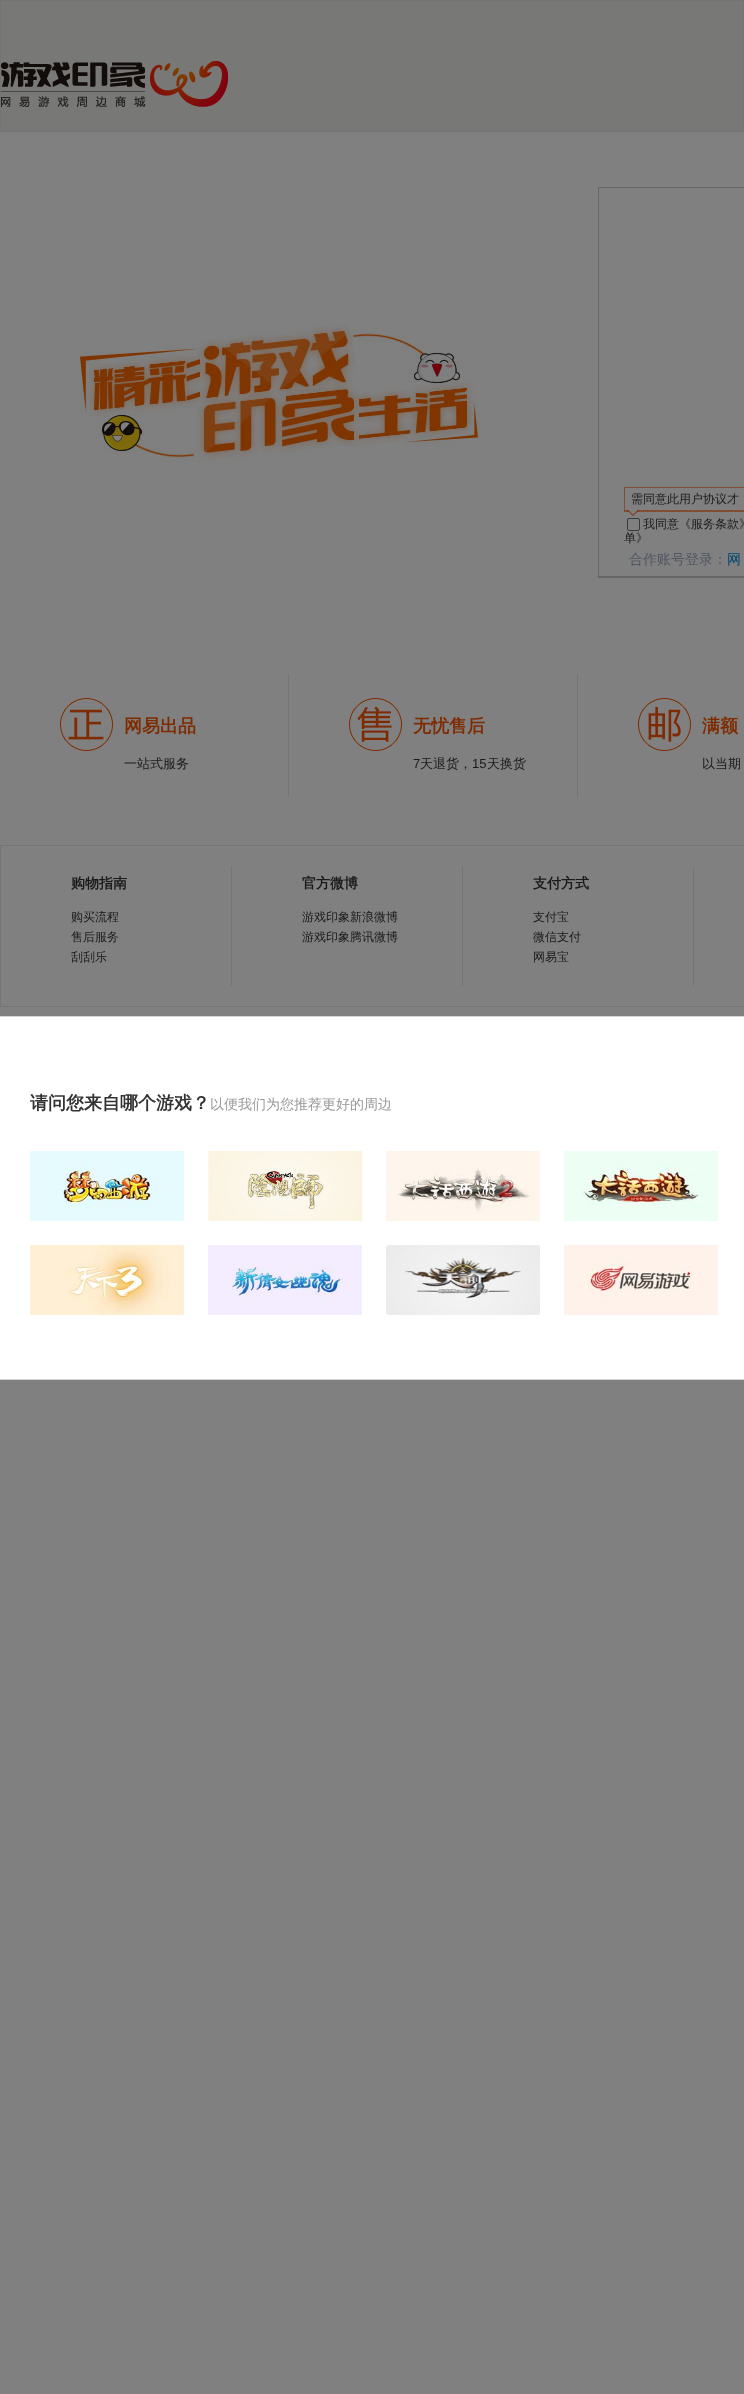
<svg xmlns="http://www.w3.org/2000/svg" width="744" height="2394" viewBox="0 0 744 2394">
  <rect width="100%" height="100%" fill="#808080"/>
  <rect x="0.5" y="0.5" width="743" height="131" fill="#787876" stroke="#747474"/>
  <image x="1" y="61" width="227" height="46" href="img1.png"/>
  <image x="80" y="324" width="400" height="139" href="img2.png"/>
  <rect x="598" y="187" width="146" height="1" fill="#666666"/>
  <rect x="598" y="576" width="146" height="2" fill="#666666"/>
  <rect x="598" y="187" width="1" height="391" fill="#666666"/>
  <rect x="624" y="487" width="120" height="1" fill="#7f4e35"/>
  <rect x="624" y="510" width="120" height="2" fill="#7f4e35"/>
  <rect x="624" y="487" width="1" height="25" fill="#7f4e35"/>
  <text x="631" y="503" font-family="WenQuanYi Zen Hei" font-size="12" font-weight="500" fill="#1a1a1a">需同意此用户协议才</text>
  <image x="627" y="510" width="12" height="6" href="img3.png"/>
  <rect x="627.5" y="518.5" width="12" height="12" rx="1.5" fill="none" stroke="#3b3b3b"/>
  <text x="643" y="528" font-family="WenQuanYi Zen Hei" font-size="12" font-weight="500" fill="#1a1a1a">我同意《服务条款》</text>
  <text x="624" y="542" font-family="WenQuanYi Zen Hei" font-size="12" font-weight="500" fill="#1a1a1a">单》</text>
  <text x="629" y="564" font-family="WenQuanYi Zen Hei" font-size="14" font-weight="500" fill="#505660">合作账号登录：</text>
  <text x="727" y="564" font-family="WenQuanYi Zen Hei" font-size="14" font-weight="500" fill="#00446e">网</text>
  <rect x="288" y="674" width="1" height="123" fill="#757575"/>
  <image x="60" y="698" width="53" height="53" href="img4.png"/>
  <text x="124" y="732" font-family="WenQuanYi Zen Hei" font-size="18" font-weight="bold" fill="#7e2b00">网易出品</text>
  <text x="124" y="768" font-family="WenQuanYi Zen Hei" font-size="13" font-weight="500" fill="#1a1a1a">一站式服务</text>
  <rect x="577" y="674" width="1" height="123" fill="#757575"/>
  <image x="349" y="698" width="53" height="53" href="img5.png"/>
  <text x="413" y="732" font-family="WenQuanYi Zen Hei" font-size="18" font-weight="bold" fill="#7e2b00">无忧售后</text>
  <text x="413" y="768" font-family="Liberation Sans" font-size="13" fill="#1a1a1a">7</text>
  <text x="420" y="768" font-family="WenQuanYi Zen Hei" font-size="13" font-weight="500" fill="#1a1a1a">天退货，</text>
  <text x="472" y="768" font-family="Liberation Sans" font-size="13" fill="#1a1a1a">15</text>
  <text x="487" y="768" font-family="WenQuanYi Zen Hei" font-size="13" font-weight="500" fill="#1a1a1a">天换货</text>
  <image x="638" y="698" width="53" height="53" href="img6.png"/>
  <text x="702" y="732" font-family="WenQuanYi Zen Hei" font-size="18" font-weight="bold" fill="#7e2b00">满额</text>
  <text x="702" y="768" font-family="WenQuanYi Zen Hei" font-size="13" font-weight="500" fill="#1a1a1a">以当期</text>
  <rect x="0.5" y="845.5" width="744" height="161" fill="none" stroke="#757575"/>
  <rect x="231" y="866" width="1" height="120" fill="#757575"/>
  <text x="71" y="888" font-family="WenQuanYi Zen Hei" font-size="14" font-weight="bold" fill="#1a1a1a">购物指南</text>
  <text x="71" y="921" font-family="WenQuanYi Zen Hei" font-size="12" font-weight="500" fill="#1a1a1a">购买流程</text>
  <text x="71" y="941" font-family="WenQuanYi Zen Hei" font-size="12" font-weight="500" fill="#1a1a1a">售后服务</text>
  <text x="71" y="961" font-family="WenQuanYi Zen Hei" font-size="12" font-weight="500" fill="#1a1a1a">刮刮乐</text>
  <rect x="462" y="866" width="1" height="120" fill="#757575"/>
  <text x="302" y="888" font-family="WenQuanYi Zen Hei" font-size="14" font-weight="bold" fill="#1a1a1a">官方微博</text>
  <text x="302" y="921" font-family="WenQuanYi Zen Hei" font-size="12" font-weight="500" fill="#1a1a1a">游戏印象新浪微博</text>
  <text x="302" y="941" font-family="WenQuanYi Zen Hei" font-size="12" font-weight="500" fill="#1a1a1a">游戏印象腾讯微博</text>
  <rect x="693" y="866" width="1" height="120" fill="#757575"/>
  <text x="533" y="888" font-family="WenQuanYi Zen Hei" font-size="14" font-weight="bold" fill="#1a1a1a">支付方式</text>
  <text x="533" y="921" font-family="WenQuanYi Zen Hei" font-size="12" font-weight="500" fill="#1a1a1a">支付宝</text>
  <text x="533" y="941" font-family="WenQuanYi Zen Hei" font-size="12" font-weight="500" fill="#1a1a1a">微信支付</text>
  <text x="533" y="961" font-family="WenQuanYi Zen Hei" font-size="12" font-weight="500" fill="#1a1a1a">网易宝</text>
  <rect x="-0.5" y="1016.5" width="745" height="363" fill="#ffffff" stroke="#d5d5d5"/>
  <text x="30" y="1109" font-family="WenQuanYi Zen Hei" font-size="18" font-weight="bold" fill="#333333">请问您来自哪个游戏？</text>
  <text x="210" y="1109" font-family="WenQuanYi Zen Hei" font-size="14" font-weight="500" fill="#999999">以便我们为您推荐更好的周边</text>
  <image x="30" y="1151" width="154" height="70" href="img7.png"/>
  <image x="208" y="1151" width="154" height="70" href="img8.png"/>
  <image x="386" y="1151" width="154" height="70" href="img9.png"/>
  <image x="564" y="1151" width="154" height="70" href="img10.png"/>
  <image x="30" y="1245" width="154" height="70" href="img11.png"/>
  <image x="208" y="1245" width="154" height="70" href="img12.png"/>
  <image x="386" y="1245" width="154" height="70" href="img13.png"/>
  <image x="564" y="1245" width="154" height="70" href="img14.png"/>
</svg>
